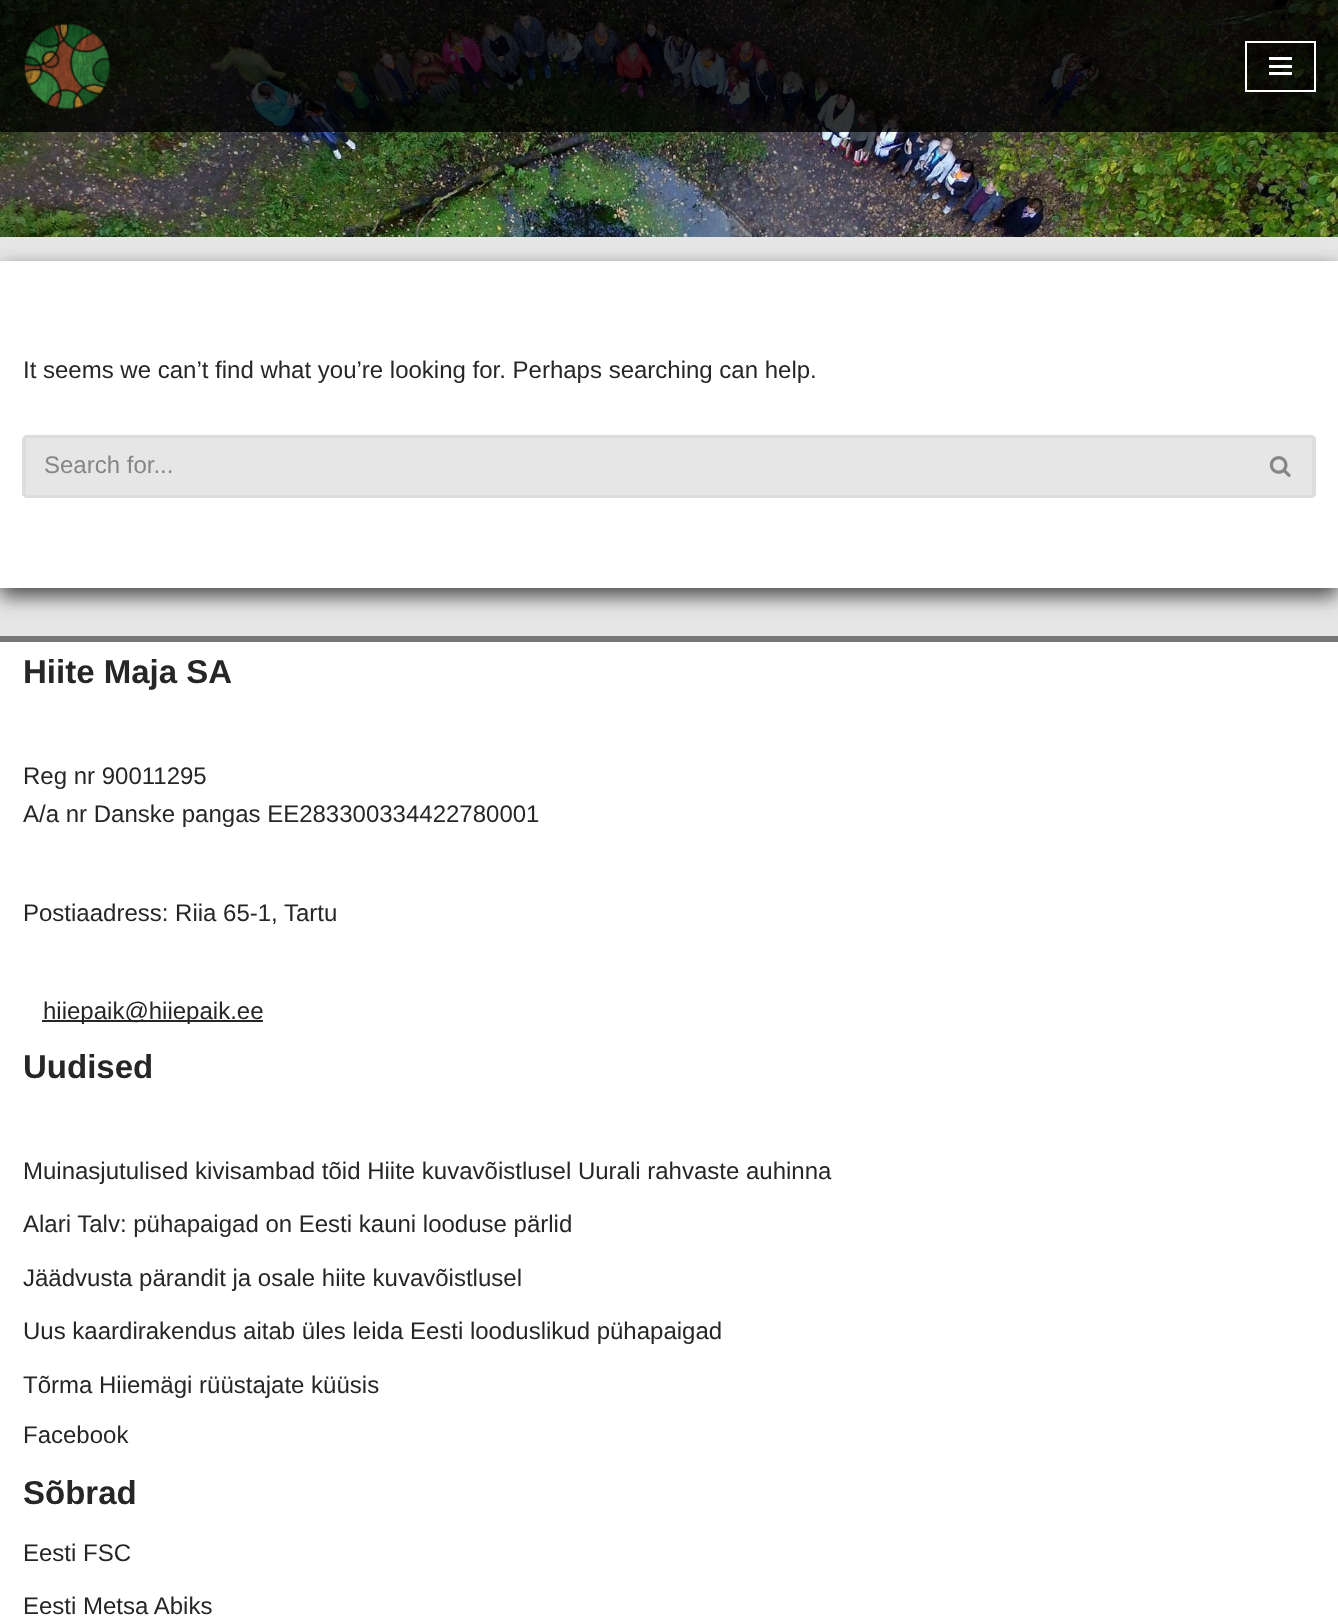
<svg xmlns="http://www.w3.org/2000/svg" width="1338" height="1616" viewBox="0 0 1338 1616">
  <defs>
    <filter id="blur1" x="-50%" y="-200%" width="200%" height="500%"><feGaussianBlur stdDeviation="10"/></filter>
  </defs>
  <rect width="100%" height="100%" fill="#e6e6e6"/>
  <image x="0" y="0" width="1338" height="237" href="img1.png"/>
  <rect x="0" y="0" width="1338" height="132" fill="#000000" fill-opacity="0.8"/>
  <image x="23" y="23" width="88" height="86" href="img2.png"/>
  <rect x="1246" y="42" width="69" height="49" fill="none" stroke="#ffffff" stroke-width="2"/>
  <rect x="1269" y="57" width="23" height="3" fill="#ffffff"/>
  <rect x="1269" y="65" width="23" height="3" fill="#ffffff"/>
  <rect x="1269" y="72" width="23" height="3" fill="#ffffff"/>
  <rect x="0" y="269" width="1338" height="327" fill="#474747" filter="url(#blur1)"/>
  <rect x="0" y="261" width="1338" height="327" fill="#ffffff"/>
  <text x="23" y="378" font-family="Liberation Sans" font-size="24" fill="#272626">It seems we can’t find what you’re looking for. Perhaps searching can help.</text>
  <path d="M28 435H1248V498H28C25 498 23 496 23 493V440C23 437 25 435 28 435Z" fill="#e6e6e6"/>
  <path d="M27 435H1248V498H27C25 498 22 496 22 494V440C22 437 25 435 27 435ZM27 438H1248V495H27C26 495 26 494 26 494V440C26 439 26 438 27 438Z" fill="#dddddd" fill-rule="evenodd"/>
  <text x="44" y="473" font-family="Liberation Sans" font-size="24" fill="#878686">Search for...</text>
  <path d="M1248 435H1311C1314 435 1316 437 1316 440V493C1316 496 1314 498 1311 498H1248Z" fill="#e6e6e6"/>
  <path d="M1248 435H1311C1313 435 1316 437 1316 440V494C1316 496 1313 498 1311 498H1248ZM1248 438H1311C1312 438 1312 439 1312 440V494C1312 494 1312 495 1311 495H1248Z" fill="#dddddd" fill-rule="evenodd"/>
  <image x="1269" y="456" width="22" height="21" href="img3.png"/>
  <rect x="0" y="642" width="1338" height="974" fill="#ffffff"/>
  <rect x="0" y="636" width="1338" height="6" fill="#787878"/>
  <text x="23" y="683" font-family="Liberation Sans" font-size="33" font-weight="bold" fill="#272626">Hiite Maja SA</text>
  <text x="23" y="784" font-family="Liberation Sans" font-size="24" fill="#272626">Reg nr 90011295</text>
  <text x="23" y="822" font-family="Liberation Sans" font-size="24" fill="#272626">A/a nr Danske pangas EE283300334422780001</text>
  <text x="23" y="921" font-family="Liberation Sans" font-size="24" fill="#272626">Postiaadress: Riia 65-1, Tartu</text>
  <rect x="42" y="1020" width="221" height="2" fill="#272626"/>
  <text x="43" y="1019" font-family="Liberation Sans" font-size="24" fill="#272626">hiiepaik@hiiepaik.ee</text>
  <text x="23" y="1078" font-family="Liberation Sans" font-size="33" font-weight="bold" fill="#272626">Uudised</text>
  <text x="23" y="1179" font-family="Liberation Sans" font-size="24" fill="#272626">Muinasjutulised kivisambad tõid Hiite kuvavõistlusel Uurali rahvaste auhinna</text>
  <text x="23" y="1232" font-family="Liberation Sans" font-size="24" fill="#272626">Alari Talv: pühapaigad on Eesti kauni looduse pärlid</text>
  <text x="23" y="1286" font-family="Liberation Sans" font-size="24" fill="#272626">Jäädvusta pärandit ja osale hiite kuvavõistlusel</text>
  <text x="23" y="1339" font-family="Liberation Sans" font-size="24" fill="#272626">Uus kaardirakendus aitab üles leida Eesti looduslikud pühapaigad</text>
  <text x="23" y="1393" font-family="Liberation Sans" font-size="24" fill="#272626">Tõrma Hiiemägi rüüstajate küüsis</text>
  <text x="23" y="1443" font-family="Liberation Sans" font-size="24" fill="#272626">Facebook</text>
  <text x="23" y="1504" font-family="Liberation Sans" font-size="33" font-weight="bold" fill="#272626">Sõbrad</text>
  <text x="23" y="1561" font-family="Liberation Sans" font-size="24" fill="#272626">Eesti FSC</text>
  <text x="23" y="1614" font-family="Liberation Sans" font-size="24" fill="#272626">Eesti Metsa Abiks</text>
</svg>
